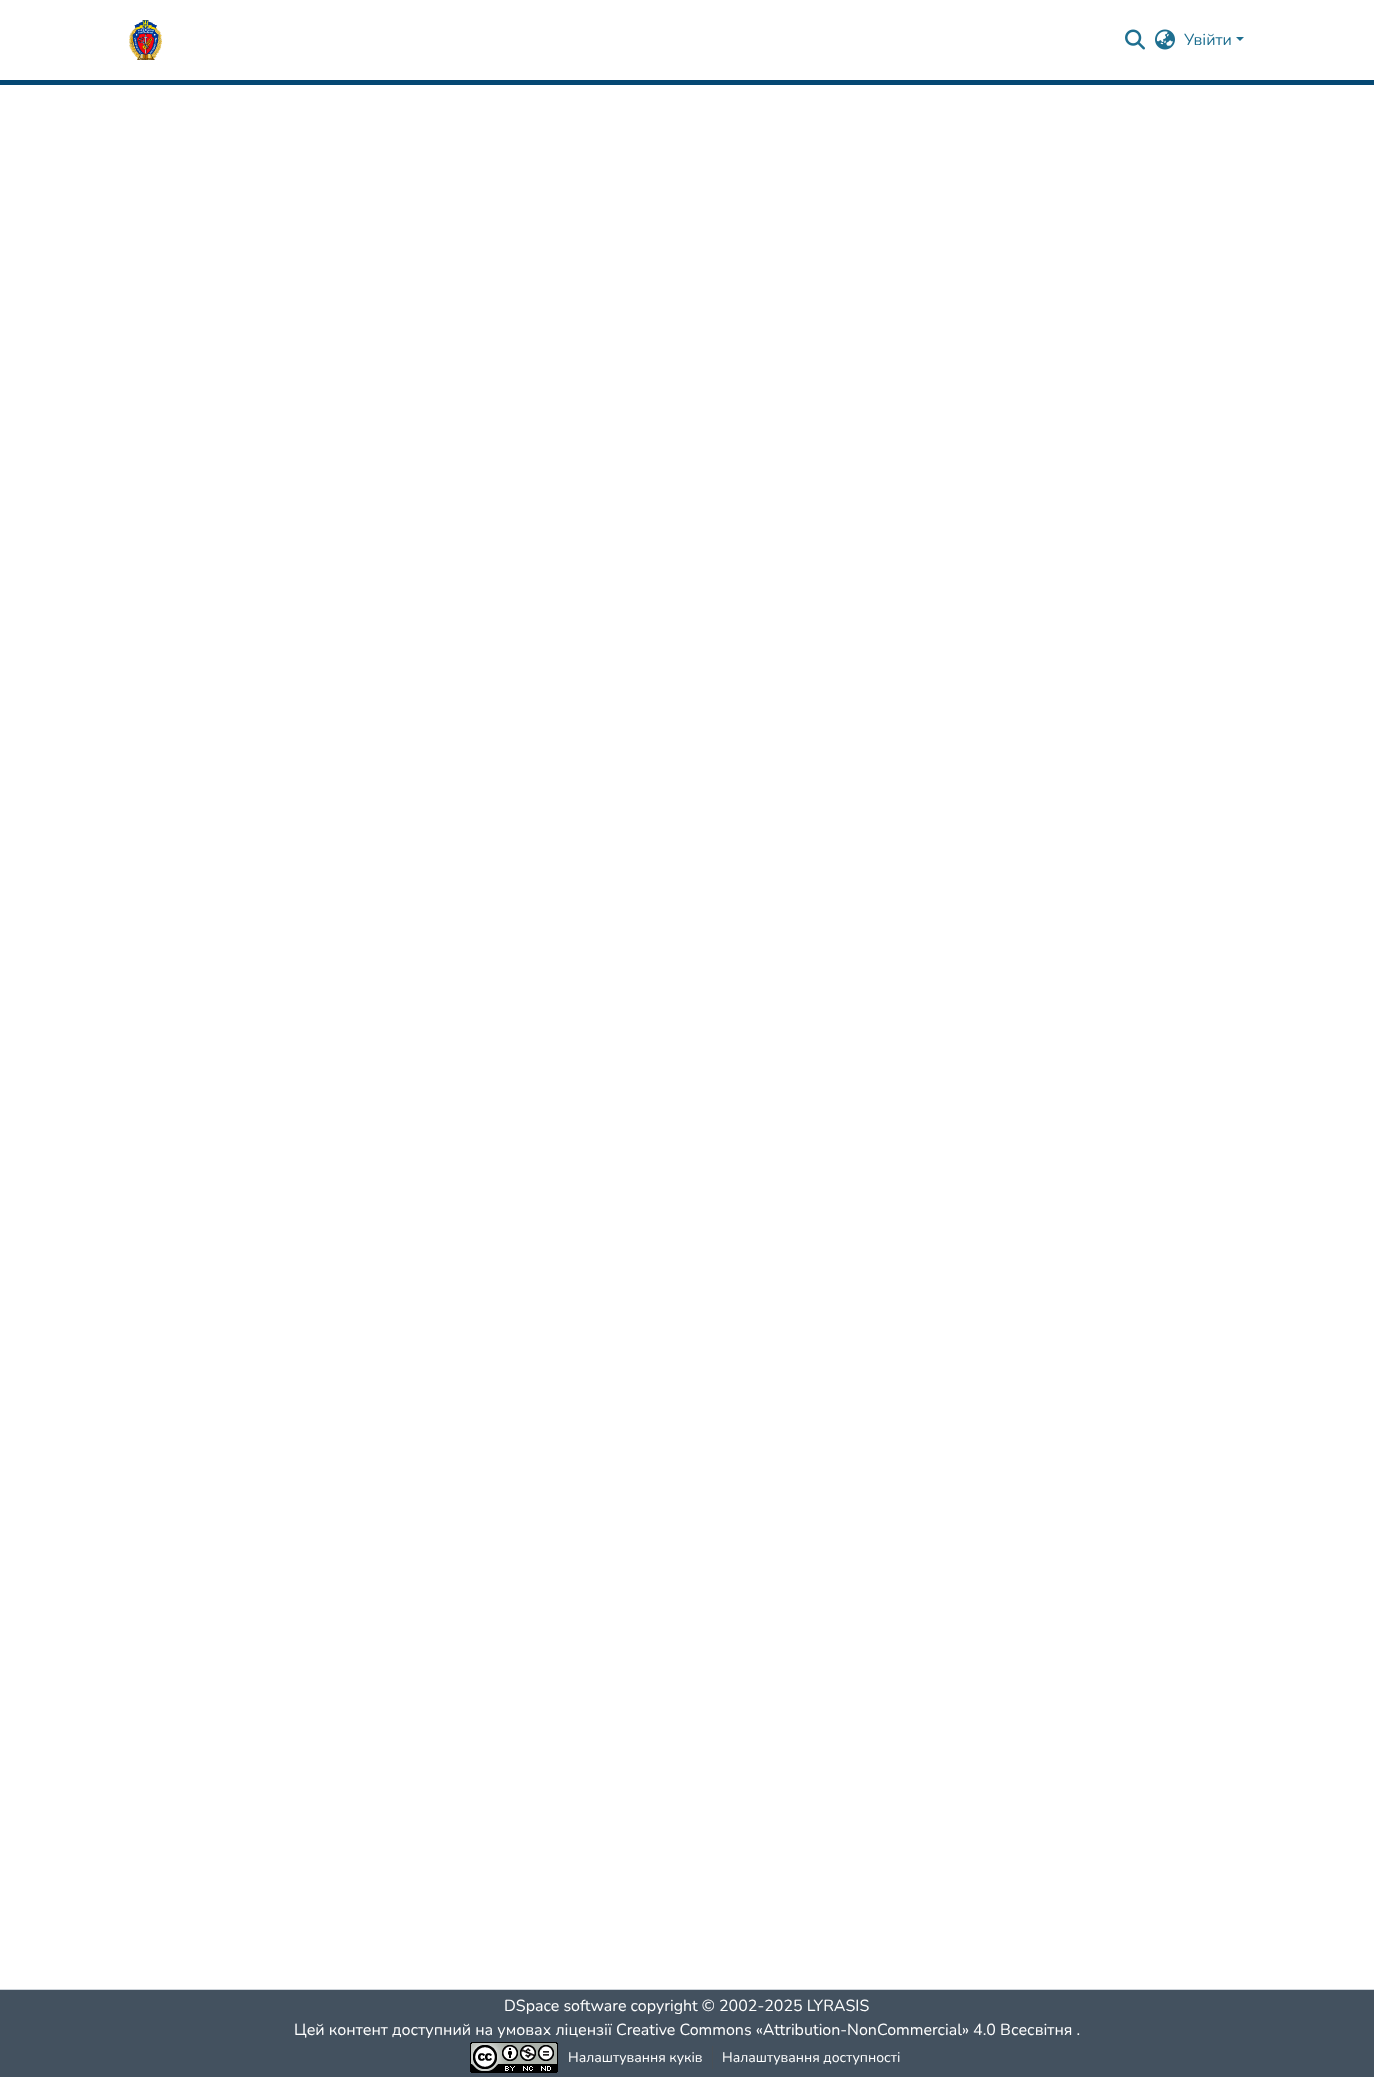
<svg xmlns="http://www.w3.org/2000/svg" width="1374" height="2077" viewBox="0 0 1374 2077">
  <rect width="100%" height="100%" fill="#ffffff"/>
  <rect x="0" y="80" width="1374" height="5" fill="#054873"/>
  <image x="129" y="20" width="33" height="40" href="img1.png"/>
  <image x="1125" y="29" width="20" height="21" href="img2.png"/>
  <image x="1155" y="29" width="20" height="21" href="img3.png"/>
  <text x="1184" y="45" font-family="Nunito" font-size="16" fill="#1e6f90">Увійти</text>
  <path d="M1236 37H1244L1240 41Z" fill="#1e6f90"/>
  <rect x="0" y="1990" width="1374" height="87" fill="#43515f"/>
  <rect x="0" y="1989" width="1374" height="1" fill="#ced4da"/>
  <text x="504" y="2011" font-family="Nunito" font-size="16" fill="#ffffff">DSpace software copyright © 2002-2025 LYRASIS</text>
  <text x="294" y="2035" font-family="Nunito" font-size="16" fill="#ffffff">Цей контент доступний на умовах ліцензії Creative Commons «Attribution-NonCommercial» 4.0 Всесвітня .</text>
  <image x="470" y="2042" width="88" height="31" href="img4.png"/>
  <text x="568" y="2062" font-family="Nunito" font-size="14" fill="#ffffff">Налаштування куків</text>
  <rect x="712" y="2046" width="1" height="23" fill="#495057"/>
  <text x="722" y="2062" font-family="Nunito" font-size="14" fill="#ffffff">Налаштування доступності</text>
</svg>
